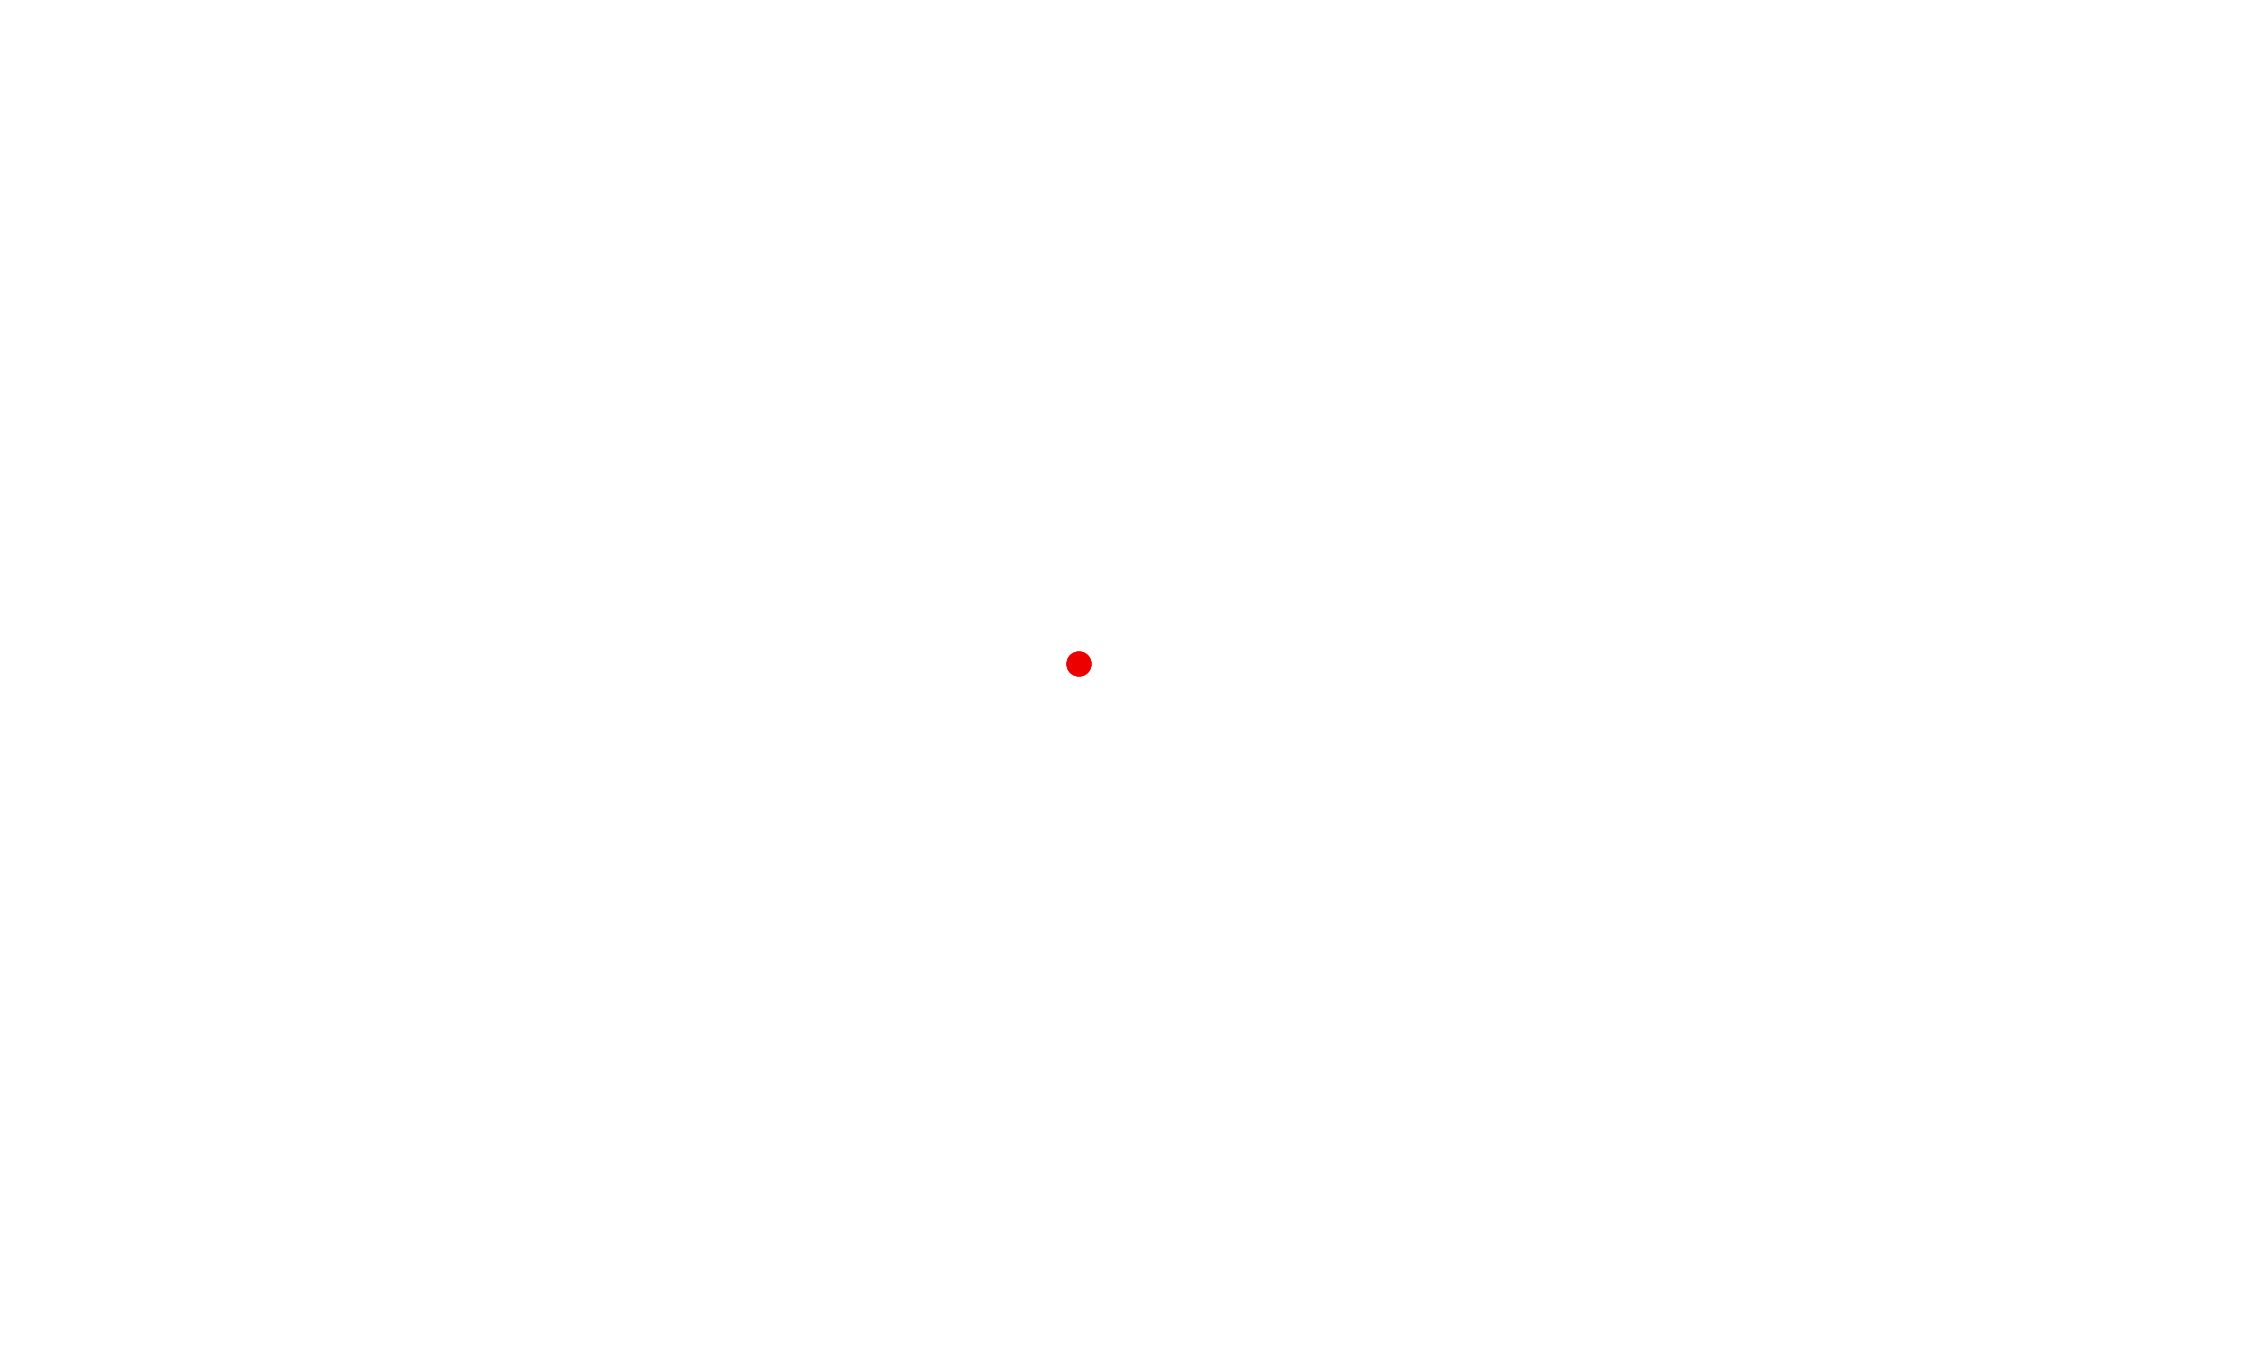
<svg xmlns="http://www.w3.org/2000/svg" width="2260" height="1353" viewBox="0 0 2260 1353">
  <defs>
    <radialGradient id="g1" gradientUnits="userSpaceOnUse" cx="1079" cy="664" r="13"><stop offset="0.9" stop-color="#ed0000"/><stop offset="1" stop-color="#ffffff"/></radialGradient>
    <radialGradient id="g2" gradientUnits="userSpaceOnUse" cx="1079" cy="664" r="13"><stop offset="0.9" stop-color="#ed0000"/><stop offset="1" stop-color="#ed0000" stop-opacity="0"/></radialGradient>
  </defs>
  <rect width="100%" height="100%" fill="#ffffff"/>
  <rect x="1066" y="651" width="26" height="26" fill="url(#g1)"/>
  <rect x="1066" y="651" width="26" height="26" fill="url(#g2)"/>
  <rect x="1066" y="651" width="26" height="26" fill="url(#g2)"/>
  <rect x="1066" y="651" width="26" height="26" fill="url(#g2)"/>
</svg>
